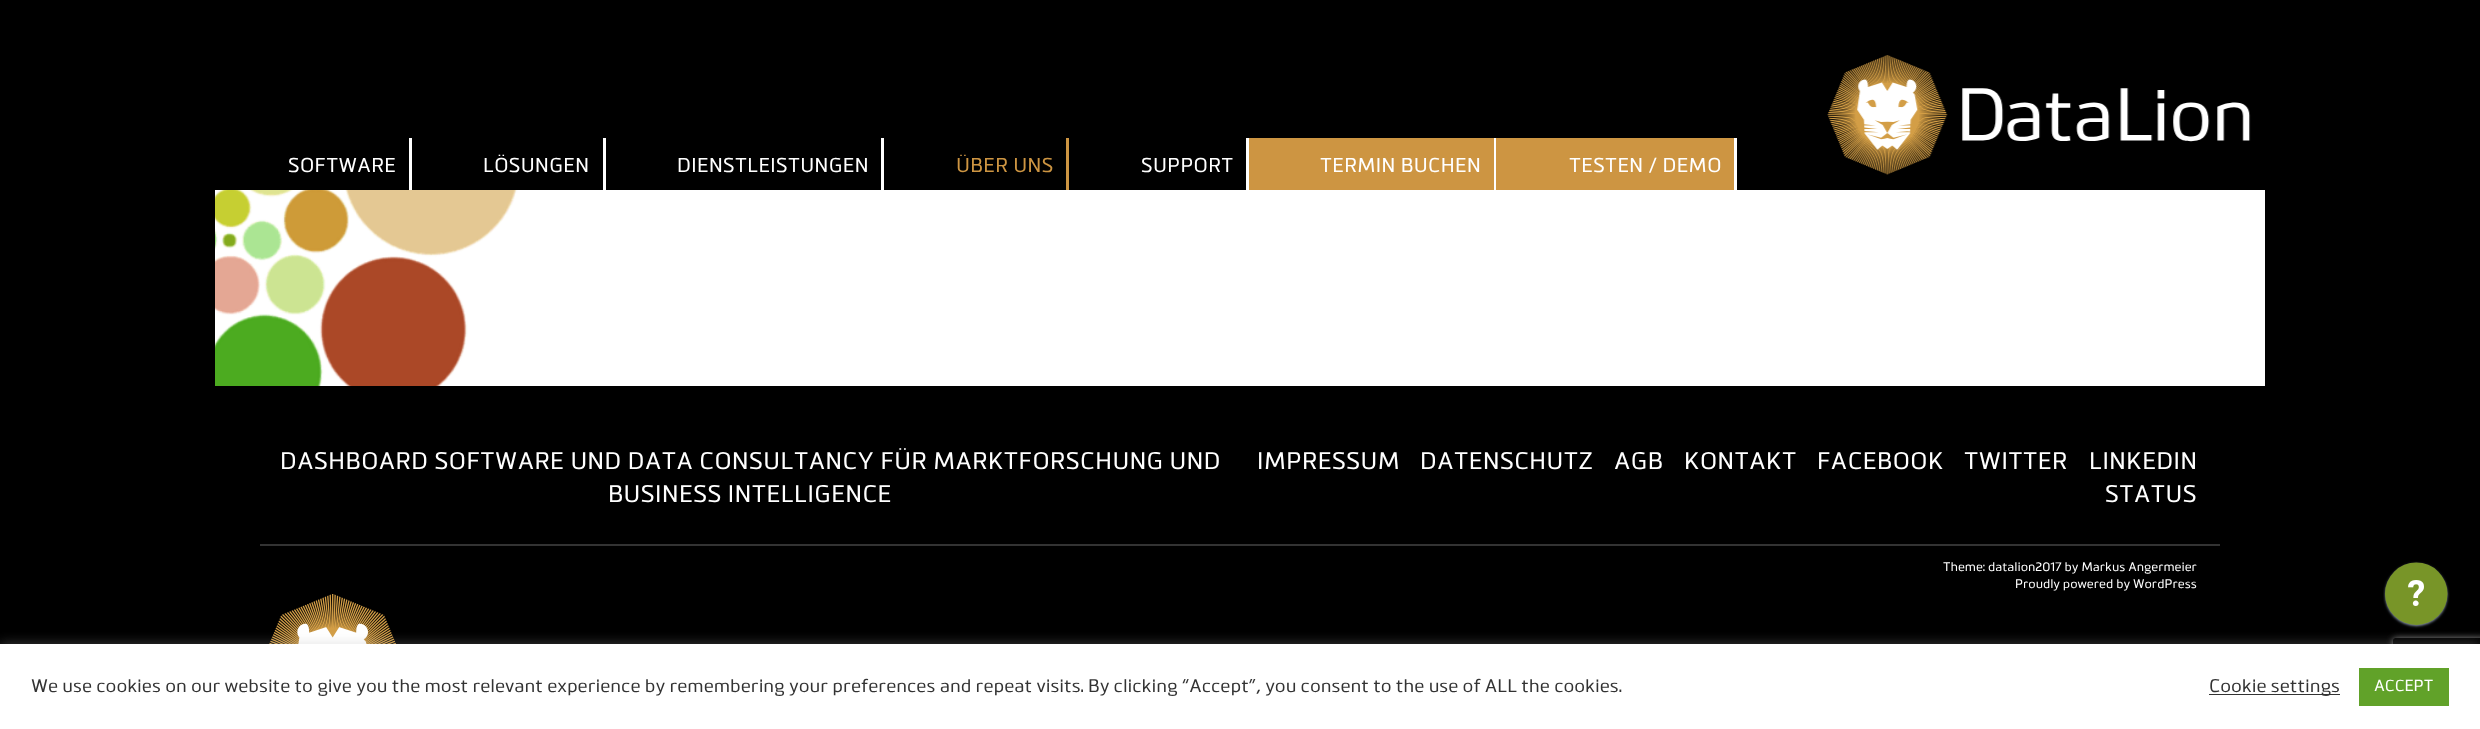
<svg xmlns="http://www.w3.org/2000/svg" width="2480" height="729" viewBox="0 0 2480 729">
  <defs>
    <clipPath id="clip1"><path d="M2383 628H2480V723H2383ZM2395.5 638H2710.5C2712 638 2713 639 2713 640.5V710.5C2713 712 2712 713 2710.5 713H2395.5C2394 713 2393 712 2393 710.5V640.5C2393 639 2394 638 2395.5 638Z" clip-rule="evenodd"/></clipPath>
    <filter id="blur1" x="-50%" y="-200%" width="200%" height="500%"><feGaussianBlur stdDeviation="3"/></filter>
    <filter id="blur2" x="-50%" y="-200%" width="200%" height="500%"><feGaussianBlur stdDeviation="6"/></filter>
  </defs>
  <rect width="100%" height="100%" fill="#000000"/>
  <rect x="409" y="138" width="3" height="52" fill="#ffffff"/>
  <text x="288" y="172" font-family="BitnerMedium" font-size="20" letter-spacing="0.4" fill="#ffffff">SOFTWARE</text>
  <rect x="603" y="138" width="3" height="52" fill="#ffffff"/>
  <text x="483" y="172" font-family="BitnerMedium" font-size="20" letter-spacing="0.4" fill="#ffffff">LÖSUNGEN</text>
  <rect x="881" y="138" width="3" height="52" fill="#ffffff"/>
  <text x="677" y="172" font-family="BitnerMedium" font-size="20" letter-spacing="0.4" fill="#ffffff">DIENSTLEISTUNGEN</text>
  <rect x="1066" y="138" width="3" height="52" fill="#cd9542"/>
  <text x="956" y="172" font-family="BitnerMedium" font-size="20" letter-spacing="0.4" fill="#cd9542">ÜBER UNS</text>
  <rect x="1246" y="138" width="3" height="52" fill="#ffffff"/>
  <text x="1141" y="172" font-family="BitnerMedium" font-size="20" letter-spacing="0.4" fill="#ffffff">SUPPORT</text>
  <rect x="1249" y="138" width="245" height="52" fill="#cd9542"/>
  <rect x="1494" y="138" width="2" height="52" fill="#ffffff"/>
  <text x="1320" y="172" font-family="BitnerMedium" font-size="20" letter-spacing="0.4" fill="#ffffff">TERMIN BUCHEN</text>
  <rect x="1496" y="138" width="238" height="52" fill="#cd9542"/>
  <rect x="1734" y="138" width="3" height="52" fill="#ffffff"/>
  <text x="1569" y="172" font-family="BitnerMedium" font-size="20" letter-spacing="0.4" fill="#ffffff">TESTEN / DEMO</text>
  <image x="1827" y="55" width="424" height="120" href="img1.png"/>
  <rect x="215" y="190" width="2050" height="196" fill="#ffffff"/>
  <image x="215" y="190" width="303" height="196" href="img2.png"/>
  <image x="269" y="594" width="127" height="50" href="img3.png"/>
  <rect x="260" y="544" width="1960" height="2" fill="#333333"/>
  <text x="280" y="469" font-family="BitnerMedium" font-size="24" letter-spacing="0.48" fill="#ffffff">DASHBOARD SOFTWARE UND DATA CONSULTANCY FÜR MARKTFORSCHUNG UND</text>
  <text x="608" y="502" font-family="BitnerMedium" font-size="24" letter-spacing="0.48" fill="#ffffff">BUSINESS INTELLIGENCE</text>
  <text x="1257" y="469" font-family="BitnerMedium" font-size="24" letter-spacing="0.48" fill="#ffffff">IMPRESSUM</text>
  <text x="1420" y="469" font-family="BitnerMedium" font-size="24" letter-spacing="0.48" fill="#ffffff">DATENSCHUTZ</text>
  <text x="1614" y="469" font-family="BitnerMedium" font-size="24" letter-spacing="0.48" fill="#ffffff">AGB</text>
  <text x="1684" y="469" font-family="BitnerMedium" font-size="24" letter-spacing="0.48" fill="#ffffff">KONTAKT</text>
  <text x="1817" y="469" font-family="BitnerMedium" font-size="24" letter-spacing="0.48" fill="#ffffff">FACEBOOK</text>
  <text x="1964" y="469" font-family="BitnerMedium" font-size="24" letter-spacing="0.48" fill="#ffffff">TWITTER</text>
  <text x="2089" y="469" font-family="BitnerMedium" font-size="24" letter-spacing="0.48" fill="#ffffff">LINKEDIN</text>
  <text x="2105" y="502" font-family="BitnerMedium" font-size="24" letter-spacing="0.48" fill="#ffffff">STATUS</text>
  <text x="1943" y="571" font-family="BitnerMedium" font-size="12.5" fill="#ffffff">Theme: datalion2017 by Markus Angermeier</text>
  <text x="2015" y="588" font-family="BitnerMedium" font-size="12.5" fill="#ffffff">Proudly powered by WordPress</text>
  <g clip-path="url(#clip1)">
    <rect x="2393" y="638" width="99" height="75" rx="2.5" fill="#808080" filter="url(#blur1)"/>
  </g>
  <rect x="0" y="643" width="2480" height="86" fill="#acabab" fill-opacity="0.3" filter="url(#blur2)"/>
  <image x="2383" y="561" width="67" height="68" href="img4.png"/>
  <rect x="0" y="644" width="2480" height="85" fill="#ffffff"/>
  <text x="31" y="692" font-family="BitnerMedium" font-size="18.33" fill="#333333">We use cookies on our website to give you the most relevant experience by remembering your preferences and repeat visits. By clicking “Accept”, you consent to the use of ALL the cookies.</text>
  <rect x="2209" y="694" width="131" height="1" fill="#333333"/>
  <text x="2209" y="692" font-family="BitnerMedium" font-size="18.33" fill="#333333">Cookie settings</text>
  <rect x="2359" y="668" width="90" height="38" fill="#61a229"/>
  <text x="2374" y="691" font-family="BitnerMedium" font-size="16" fill="#ffffff">ACCEPT</text>
</svg>
